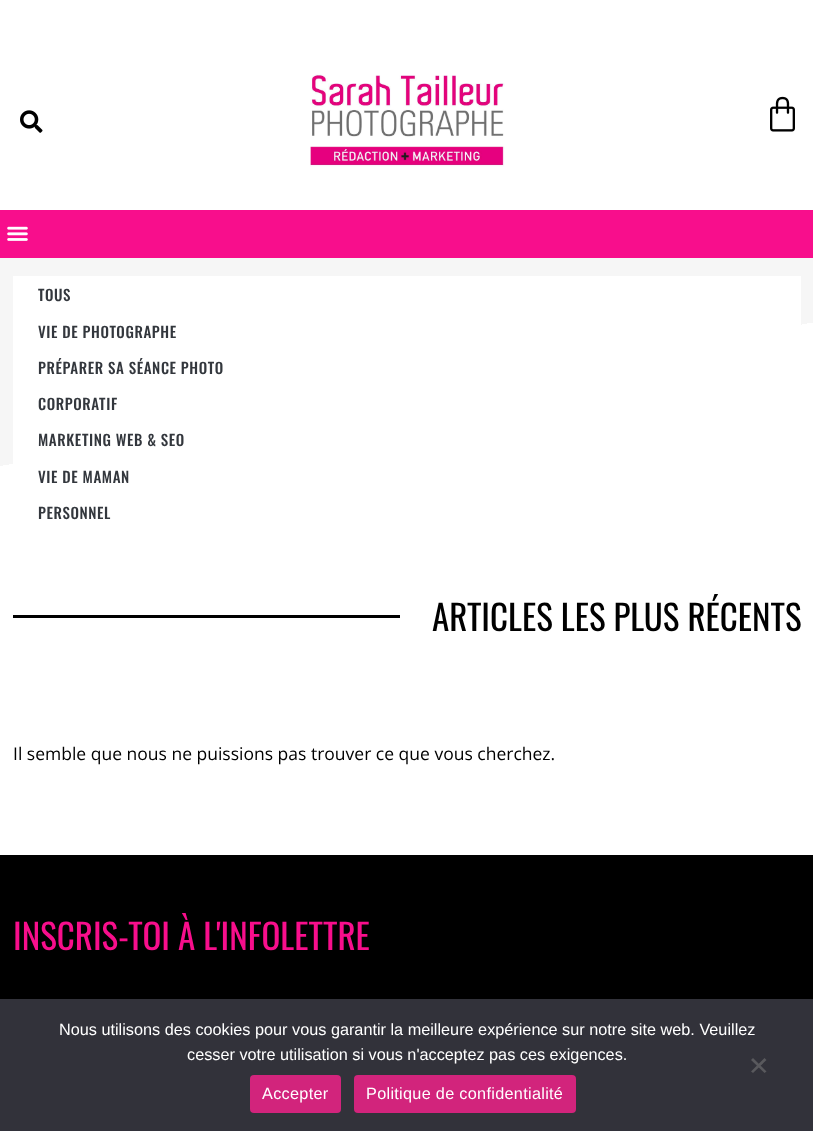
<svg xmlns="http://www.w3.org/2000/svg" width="813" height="1131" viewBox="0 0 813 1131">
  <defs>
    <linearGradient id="g1" gradientUnits="userSpaceOnUse" x1="342" y1="178" x2="472" y2="914"><stop offset="0.3" stop-color="#f6f6f6"/><stop offset="0.3" stop-color="#ffffff"/></linearGradient>
  </defs>
  <rect width="100%" height="100%" fill="#ffffff"/>
  <image x="20" y="110" width="23" height="23" href="img1.png"/>
  <image x="310" y="74" width="195" height="93" href="img2.png"/>
  <image x="770" y="96" width="25" height="36" href="img3.png"/>
  <rect x="0" y="210" width="813" height="48" fill="#f80e8c"/>
  <image x="7" y="226" width="21" height="15" href="img4.png"/>
  <rect x="0" y="258" width="813" height="208" fill="url(#g1)"/>
  <rect x="13" y="276" width="788" height="188" fill="#ffffff"/>
  <text x="38" y="301" font-family="Oswald" font-size="15" font-weight="500" letter-spacing="0.6" fill="#33373d">TOUS</text>
  <text x="38" y="338" font-family="Oswald" font-size="15" font-weight="500" letter-spacing="0.6" fill="#33373d">VIE DE PHOTOGRAPHE</text>
  <text x="38" y="374" font-family="Oswald" font-size="15" font-weight="500" letter-spacing="0.6" fill="#33373d">PRÉPARER SA SÉANCE PHOTO</text>
  <text x="38" y="410" font-family="Oswald" font-size="15" font-weight="500" letter-spacing="0.6" fill="#33373d">CORPORATIF</text>
  <text x="38" y="446" font-family="Oswald" font-size="15" font-weight="500" letter-spacing="0.6" fill="#33373d">MARKETING WEB &amp; SEO</text>
  <text x="38" y="483" font-family="Oswald" font-size="15" font-weight="500" letter-spacing="0.6" fill="#33373d">VIE DE MAMAN</text>
  <text x="38" y="519" font-family="Oswald" font-size="15" font-weight="500" letter-spacing="0.6" fill="#33373d">PERSONNEL</text>
  <rect x="13" y="615" width="387" height="3" fill="#000000"/>
  <text x="432" y="631" font-family="Oswald" font-size="35" fill="#000000">ARTICLES LES PLUS RÉCENTS</text>
  <text x="13" y="760" font-family="Open Sans" font-size="17.5" fill="#000000">Il semble que nous ne puissions pas trouver ce que vous cherchez.</text>
  <rect x="0" y="855" width="813" height="144" fill="#000000"/>
  <text x="13" y="950" font-family="Oswald" font-size="35" fill="#f80e8c">INSCRIS-TOI À L'INFOLETTRE</text>
  <rect x="0" y="999" width="813" height="132" fill="#32323a"/>
  <text x="59" y="1035" font-family="Liberation Sans" font-size="16.25" fill="#ffffff">Nous utilisons des cookies pour vous garantir la meilleure expérience sur notre site web. Veuillez</text>
  <text x="187" y="1060" font-family="Liberation Sans" font-size="16.25" fill="#ffffff">cesser votre utilisation si vous n'acceptez pas ces exigences.</text>
  <path d="M764.5 1058L766.5 1060L753 1073L751 1071.5Z" fill="#59595d"/>
  <path d="M751 1060L753 1058L766.5 1071.5L764.5 1073Z" fill="#59595d"/>
  <rect x="250" y="1075" width="91" height="38" rx="4" fill="#d2247c"/>
  <text x="262" y="1099" font-family="Liberation Sans" font-size="16.25" letter-spacing="0.3" fill="#ffffff">Accepter</text>
  <rect x="354" y="1075" width="222" height="38" rx="4" fill="#d2247c"/>
  <text x="366" y="1099" font-family="Liberation Sans" font-size="16.25" letter-spacing="0.3" fill="#ffffff">Politique de confidentialité</text>
</svg>
